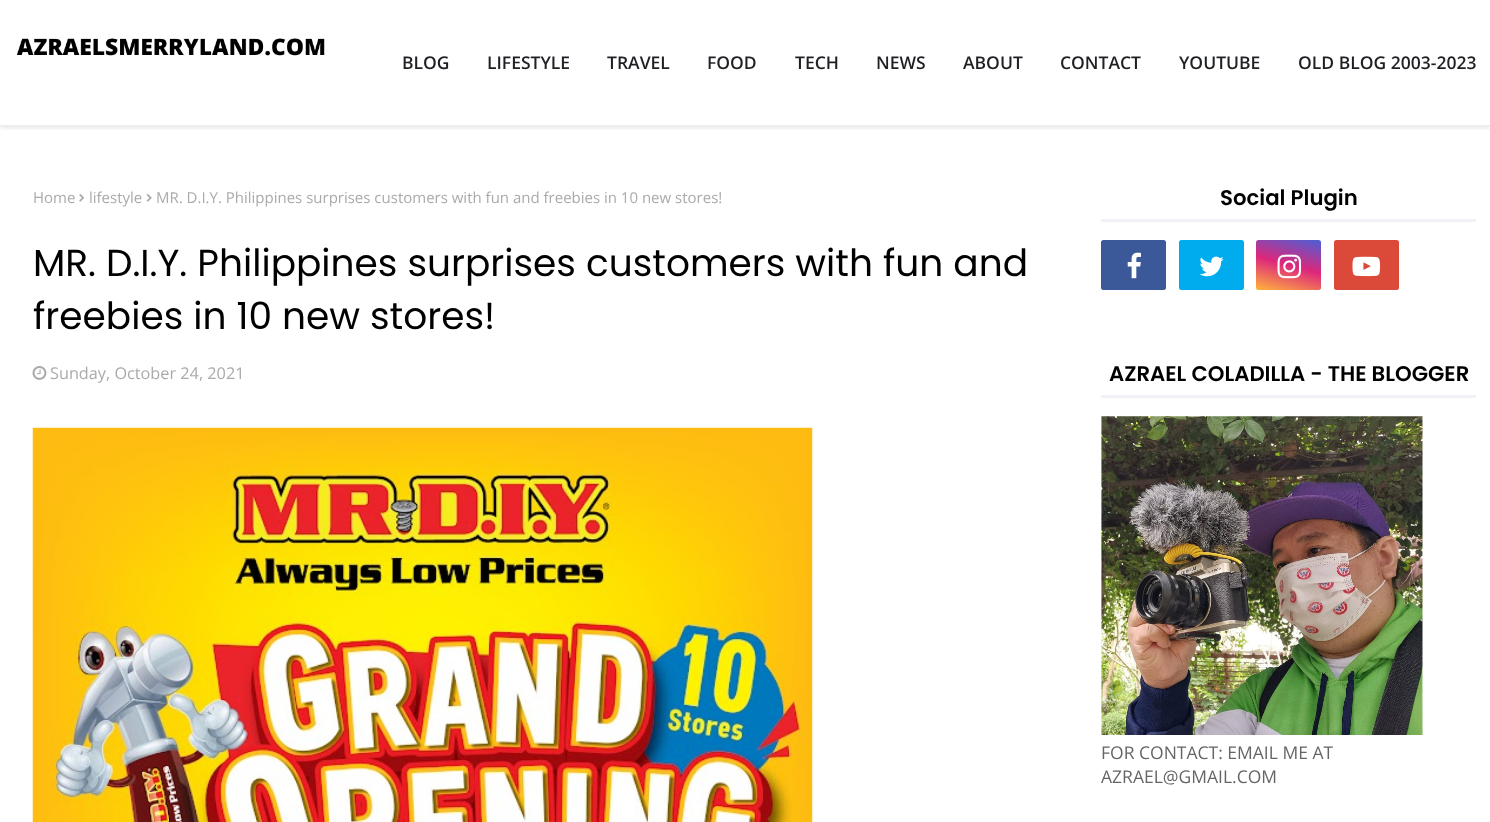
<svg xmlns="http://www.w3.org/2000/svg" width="1490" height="822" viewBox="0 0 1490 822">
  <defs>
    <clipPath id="clip1"><rect x="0" y="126" width="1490" height="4"/></clipPath>
    <filter id="blur1" x="-50%" y="-200%" width="200%" height="500%"><feGaussianBlur stdDeviation="2.5"/></filter>
    <linearGradient id="g1" gradientUnits="userSpaceOnUse" x1="1280" y1="296" x2="1297" y2="234"><stop offset="0" stop-color="#ffb13d"/><stop offset="0.5" stop-color="#dd277b"/><stop offset="1" stop-color="#4d5ed4"/></linearGradient>
  </defs>
  <rect width="100%" height="100%" fill="#ffffff"/>
  <g clip-path="url(#clip1)">
    <rect x="0" y="1" width="1490" height="127" fill="#000000" fill-opacity="0.1" filter="url(#blur1)"/>
  </g>
  <rect x="0" y="125" width="1490" height="1" fill="#eeeeee"/>
  <image x="17" y="38" width="308" height="18" href="img1.png"/>
  <text x="402" y="69" font-family="Open Sans" font-size="17.5" font-weight="600" fill="#1f2024">BLOG</text>
  <text x="487" y="69" font-family="Open Sans" font-size="17.5" font-weight="600" fill="#1f2024">LIFESTYLE</text>
  <text x="607" y="69" font-family="Open Sans" font-size="17.5" font-weight="600" fill="#1f2024">TRAVEL</text>
  <text x="707" y="69" font-family="Open Sans" font-size="17.5" font-weight="600" fill="#1f2024">FOOD</text>
  <text x="795" y="69" font-family="Open Sans" font-size="17.5" font-weight="600" fill="#1f2024">TECH</text>
  <text x="876" y="69" font-family="Open Sans" font-size="17.5" font-weight="600" fill="#1f2024">NEWS</text>
  <text x="963" y="69" font-family="Open Sans" font-size="17.5" font-weight="600" fill="#1f2024">ABOUT</text>
  <text x="1060" y="69" font-family="Open Sans" font-size="17.5" font-weight="600" fill="#1f2024">CONTACT</text>
  <text x="1179" y="69" font-family="Open Sans" font-size="17.5" font-weight="600" fill="#1f2024">YOUTUBE</text>
  <text x="1298" y="69" font-family="Open Sans" font-size="17.5" font-weight="600" fill="#1f2024">OLD BLOG 2003-2023</text>
  <text x="33" y="203" font-family="Open Sans" font-size="15" fill="#aaaaaa">Home</text>
  <image x="79" y="194" width="6" height="8" href="img2.png"/>
  <text x="89" y="203" font-family="Open Sans" font-size="15" fill="#aaaaaa">lifestyle</text>
  <image x="146" y="194" width="6" height="8" href="img3.png"/>
  <text x="156" y="203" font-family="Open Sans" font-size="15" fill="#aaaaaa">MR. D.I.Y. Philippines surprises customers with fun and freebies in 10 new stores!</text>
  <text x="33" y="276" font-family="Poppins" font-size="37.5" fill="#000000">MR. D.I.Y. Philippines surprises customers with fun and</text>
  <text x="33" y="329" font-family="Poppins" font-size="37.5" fill="#000000">freebies in 10 new stores!</text>
  <image x="32" y="366" width="15" height="14" href="img4.png"/>
  <text x="50" y="379" font-family="Open Sans" font-size="16.25" fill="#aaaaaa">Sunday, October 24, 2021</text>
  <image x="32" y="427" width="781" height="395" href="img5.png"/>
  <rect x="1101" y="219" width="375" height="3" fill="#f2f2f6"/>
  <text x="1220" y="205" font-family="Poppins" font-size="21.25" font-weight="600" fill="#000000">Social Plugin</text>
  <rect x="1101" y="240" width="65" height="50" rx="2.5" fill="#3b5999"/>
  <image x="1127" y="252" width="14" height="27" href="img6.png"/>
  <rect x="1179" y="240" width="65" height="50" rx="2.5" fill="#00acee"/>
  <image x="1199" y="256" width="25" height="21" href="img7.png"/>
  <rect x="1256" y="240" width="65" height="50" rx="2.5" fill="url(#g1)"/>
  <image x="1277" y="254" width="25" height="25" href="img8.png"/>
  <rect x="1334" y="240" width="65" height="50" rx="2.5" fill="#db4a39"/>
  <image x="1352" y="256" width="28" height="21" href="img9.png"/>
  <rect x="1101" y="395" width="375" height="3" fill="#f2f2f6"/>
  <text x="1109" y="381" font-family="Poppins" font-size="21.25" font-weight="600" fill="#000000">AZRAEL COLADILLA - THE BLOGGER</text>
  <image x="1101" y="416" width="322" height="319" href="img10.png"/>
  <text x="1101" y="759" font-family="Open Sans" font-size="17.5" fill="#656565">FOR CONTACT: EMAIL ME AT</text>
  <text x="1101" y="783" font-family="Open Sans" font-size="17.5" fill="#656565">AZRAEL@GMAIL.COM</text>
</svg>
